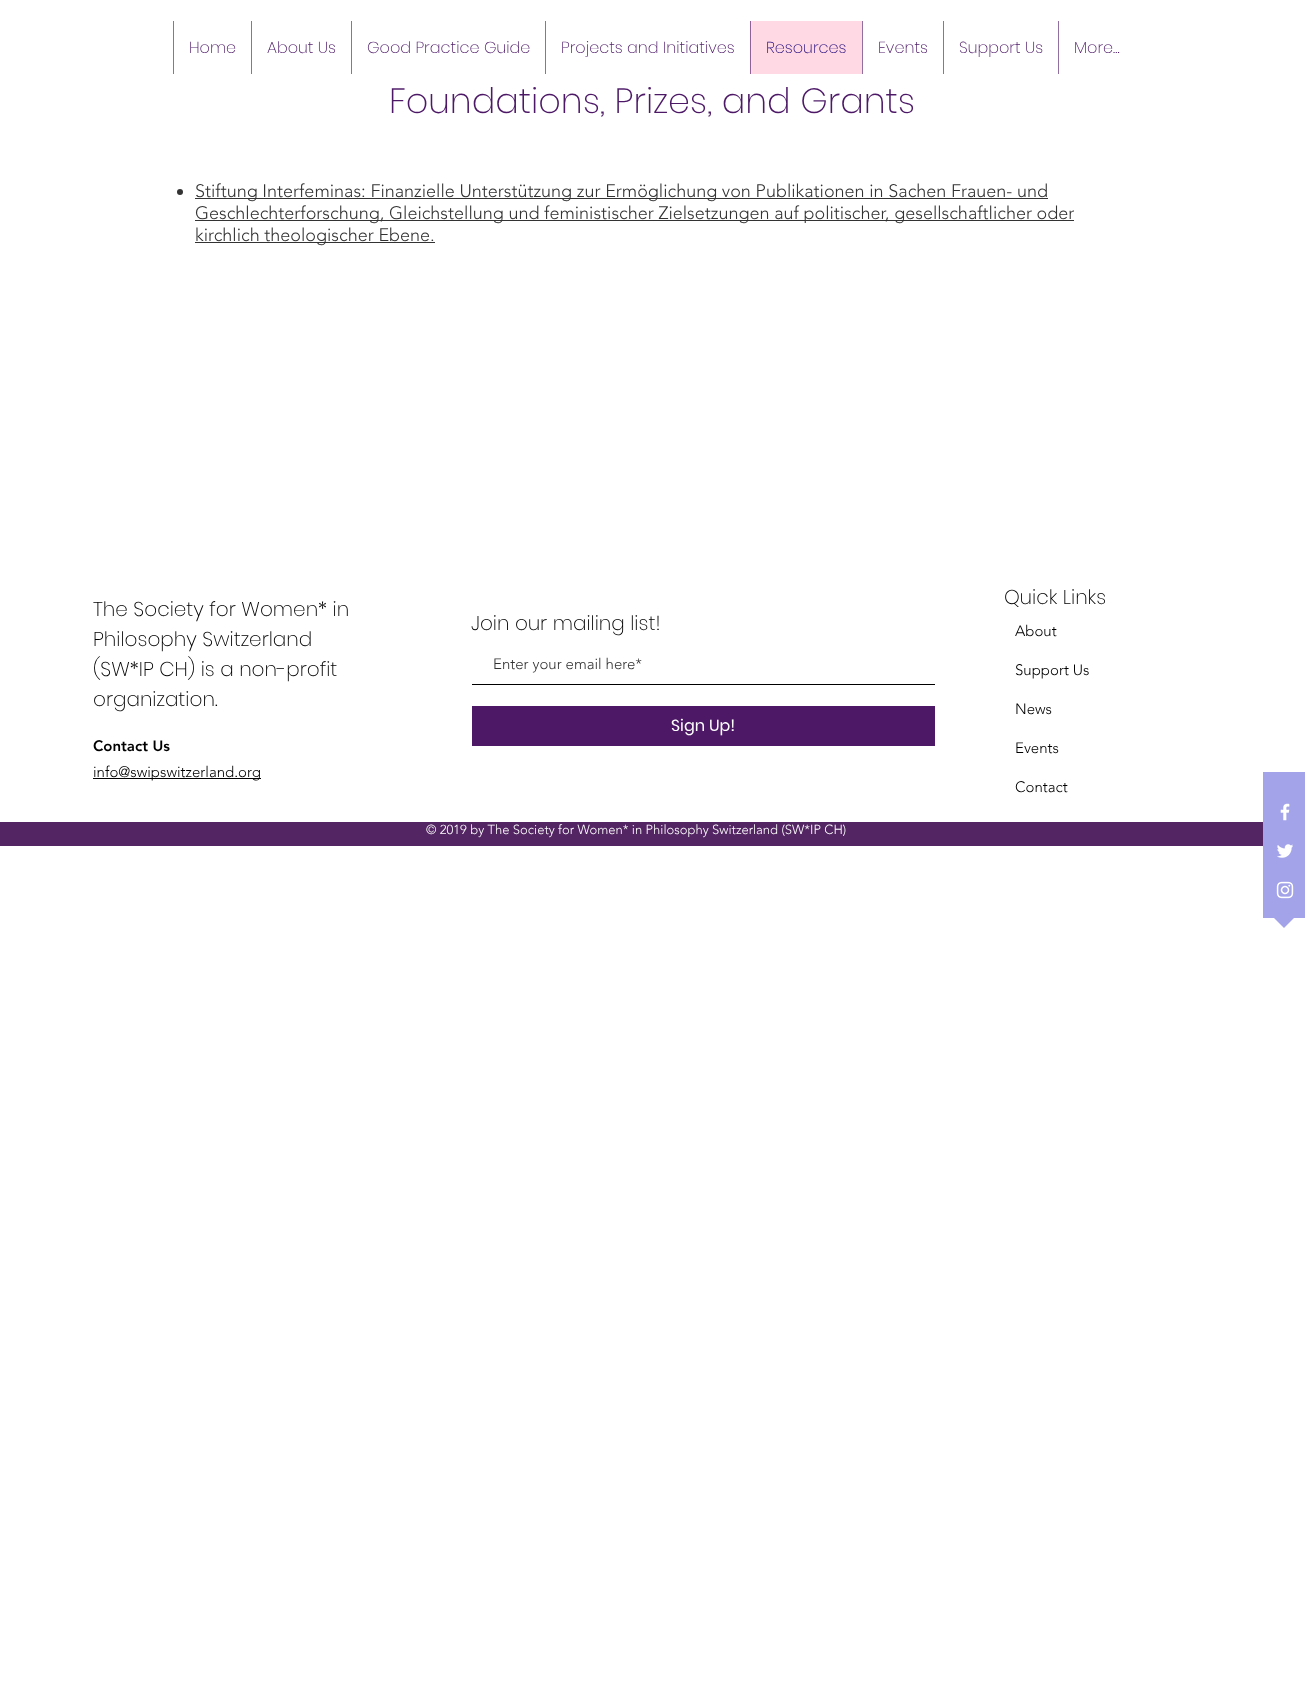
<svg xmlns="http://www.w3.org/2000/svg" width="1305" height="1700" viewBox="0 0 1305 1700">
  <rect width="100%" height="100%" fill="#ffffff"/>
  <rect x="173" y="21" width="1" height="53" fill="#9170a1"/>
  <text x="189" y="53" font-family="Poppins" font-size="16" font-weight="200" fill="#4d1967">Home</text>
  <rect x="251" y="21" width="1" height="53" fill="#9170a1"/>
  <text x="267" y="53" font-family="Poppins" font-size="16" font-weight="200" fill="#4d1967">About Us</text>
  <rect x="351" y="21" width="1" height="53" fill="#9170a1"/>
  <text x="367" y="53" font-family="Poppins" font-size="16" font-weight="200" fill="#4d1967">Good Practice Guide</text>
  <rect x="545" y="21" width="1" height="53" fill="#9170a1"/>
  <text x="561" y="53" font-family="Poppins" font-size="16" font-weight="200" fill="#4d1967">Projects and Initiatives</text>
  <rect x="751" y="21" width="111" height="53" fill="#ffd9e4"/>
  <rect x="750" y="21" width="1" height="53" fill="#916297"/>
  <text x="766" y="53" font-family="Poppins" font-size="16" font-weight="200" fill="#230c7d">Resources</text>
  <rect x="862" y="21" width="1" height="53" fill="#9170a1"/>
  <text x="878" y="53" font-family="Poppins" font-size="16" font-weight="200" fill="#4d1967">Events</text>
  <rect x="943" y="21" width="1" height="53" fill="#9170a1"/>
  <text x="959" y="53" font-family="Poppins" font-size="16" font-weight="200" fill="#4d1967">Support Us</text>
  <rect x="1058" y="21" width="1" height="53" fill="#9170a1"/>
  <text x="1074" y="53" font-family="Poppins" font-size="16" font-weight="200" fill="#4d1967">More...</text>
  <text x="389" y="113" font-family="Poppins" font-size="35" font-weight="200" fill="#4d1967">Foundations, Prizes, and Grants</text>
  <circle cx="180" cy="192" r="3" fill="#333333"/>
  <rect x="195" y="198" width="853" height="1" fill="#333333"/>
  <text x="195" y="197" font-family="'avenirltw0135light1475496'" font-size="18" font-weight="300" fill="#333333">Stiftung Interfeminas: Finanzielle Unterstützung zur Ermöglichung von Publikationen in Sachen Frauen- und</text>
  <rect x="195" y="220" width="879" height="1" fill="#333333"/>
  <text x="195" y="219" font-family="'avenirltw0135light1475496'" font-size="18" font-weight="300" fill="#333333">Geschlechterforschung, Gleichstellung und feministischer Zielsetzungen auf politischer, gesellschaftlicher oder</text>
  <rect x="195" y="242" width="240" height="1" fill="#333333"/>
  <text x="195" y="241" font-family="'avenirltw0135light1475496'" font-size="18" font-weight="300" fill="#333333">kirchlich theologischer Ebene.</text>
  <text x="93" y="616" font-family="Poppins" font-size="20" font-weight="200" fill="#000000">The Society for Women* in</text>
  <text x="93" y="646" font-family="Poppins" font-size="20" font-weight="200" fill="#000000">Philosophy Switzerland</text>
  <text x="93" y="676" font-family="Poppins" font-size="20" font-weight="200" fill="#000000">(SW*IP CH) is a non-profit</text>
  <text x="93" y="706" font-family="Poppins" font-size="20" font-weight="200" fill="#000000">organization.</text>
  <text x="93" y="751" font-family="'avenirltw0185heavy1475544'" font-size="15" font-weight="900" fill="#000000">Contact Us</text>
  <rect x="93" y="778" width="168" height="1" fill="#000000"/>
  <text x="93" y="777" font-family="'avenirltw0135light1475496'" font-size="15" font-weight="300" fill="#000000">info@swipswitzerland.org</text>
  <text x="471" y="630" font-family="Poppins" font-size="20" font-weight="200" fill="#000000">Join our mailing list!</text>
  <rect x="472" y="684" width="463" height="1" fill="#000000"/>
  <text x="493" y="669" font-family="'avenirltw0135light1475496'" font-size="15" font-weight="300" fill="#333333">Enter your email here*</text>
  <rect x="472" y="706" width="463" height="40" fill="#4d1967"/>
  <text x="671" y="731" font-family="Poppins" font-size="16" fill="#ffffff">Sign Up!</text>
  <text x="1004" y="604" font-family="Poppins" font-size="20" font-weight="200" fill="#000000">Quick Links</text>
  <text x="1015" y="636" font-family="'avenirltw0135light1475496'" font-size="15" font-weight="300" fill="#000000">About</text>
  <text x="1015" y="675" font-family="'avenirltw0135light1475496'" font-size="15" font-weight="300" fill="#000000">Support Us</text>
  <text x="1015" y="714" font-family="'avenirltw0135light1475496'" font-size="15" font-weight="300" fill="#000000">News</text>
  <text x="1015" y="753" font-family="'avenirltw0135light1475496'" font-size="15" font-weight="300" fill="#000000">Events</text>
  <text x="1015" y="792" font-family="'avenirltw0135light1475496'" font-size="15" font-weight="300" fill="#000000">Contact</text>
  <rect x="0" y="822" width="1263" height="24" fill="#532563"/>
  <text x="426" y="834" font-family="'avenirltw0135light1475496'" font-size="13" font-weight="300" fill="#ffffff">© 2019 by The Society for Women* in Philosophy Switzerland (SW*IP CH)</text>
  <rect x="1263" y="772" width="42" height="146" fill="#a2a3e9"/>
  <image x="1280" y="803" width="10" height="18" href="img1.png"/>
  <image x="1277" y="844" width="16" height="14" href="img2.png"/>
  <image x="1276" y="881" width="18" height="18" href="img3.png"/>
  <path d="M1274 918H1294L1284 928Z" fill="#a2a3e9"/>
</svg>
